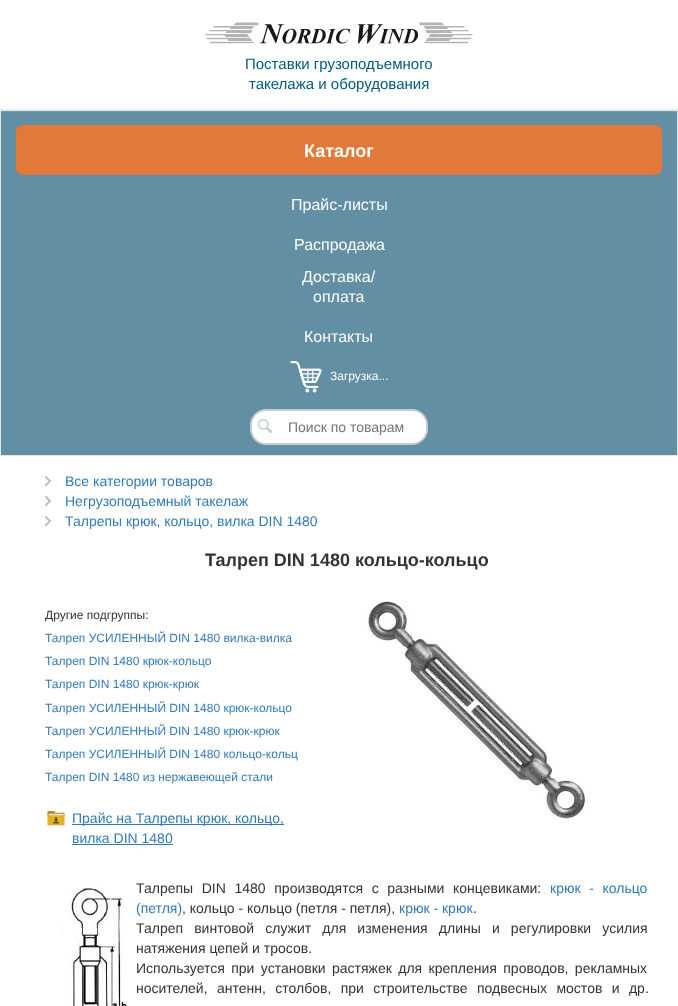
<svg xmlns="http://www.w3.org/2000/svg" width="678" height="1006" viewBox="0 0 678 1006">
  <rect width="100%" height="100%" fill="#ffffff"/>
  <image x="205" y="22" width="268" height="22" href="img1.png"/>
  <text x="245" y="69" font-family="Liberation Sans" font-size="15" fill="#005b79">Поставки грузоподъемного</text>
  <text x="249" y="89" font-family="Liberation Sans" font-size="15" fill="#005b79">такелажа и оборудования</text>
  <rect x="1" y="112" width="676" height="343" fill="#628fa4"/>
  <rect x="0.5" y="109.5" width="677" height="346" fill="none" stroke="#e7e7e7"/>
  <rect x="1" y="111" width="676" height="1" fill="#729aad"/>
  <rect x="1" y="110" width="676" height="1" fill="#e7e7e7"/>
  <rect x="16" y="125" width="646" height="50" rx="7" fill="#e2783a"/>
  <text x="304" y="157" font-family="Liberation Sans" font-size="18" font-weight="bold" fill="#ffffff">Каталог</text>
  <text x="291" y="210" font-family="Liberation Sans" font-size="16" fill="#ffffff">Прайс-листы</text>
  <text x="294" y="250" font-family="Liberation Sans" font-size="16" fill="#ffffff">Распродажа</text>
  <text x="302" y="282" font-family="Liberation Sans" font-size="16" fill="#ffffff">Доставка/</text>
  <text x="313" y="302" font-family="Liberation Sans" font-size="16" fill="#ffffff">оплата</text>
  <text x="304" y="342" font-family="Liberation Sans" font-size="16" fill="#ffffff">Контакты</text>
  <image x="290" y="361" width="32" height="32" href="img2.png"/>
  <text x="330" y="380" font-family="Liberation Sans" font-size="12" fill="#ffffff">Загрузка...</text>
  <rect x="251" y="410" width="176" height="34" rx="15" fill="#ffffff" stroke="#c6ccd2" stroke-width="2"/>
  <image x="258" y="419" width="14" height="14" href="img3.png"/>
  <text x="288" y="432" font-family="Liberation Sans" font-size="14" fill="#757575">Поиск по товарам</text>
  <image x="45" y="476" width="6" height="10" href="img4.png"/>
  <text x="65" y="486" font-family="Liberation Sans" font-size="14" fill="#337ab7">Все категории товаров</text>
  <image x="45" y="496" width="6" height="10" href="img4.png"/>
  <text x="65" y="506" font-family="Liberation Sans" font-size="14" fill="#337ab7">Негрузоподъемный такелаж</text>
  <image x="45" y="516" width="6" height="10" href="img4.png"/>
  <text x="65" y="526" font-family="Liberation Sans" font-size="14" fill="#337ab7">Талрепы крюк, кольцо, вилка DIN 1480</text>
  <text x="205" y="566" font-family="Liberation Sans" font-size="18" font-weight="bold" fill="#333333">Талреп DIN 1480 кольцо-кольцо</text>
  <text x="45" y="619" font-family="Liberation Sans" font-size="12" fill="#333333">Другие подгруппы:</text>
  <text x="45" y="642" font-family="Liberation Sans" font-size="12" fill="#337ab7">Талреп УСИЛЕННЫЙ DIN 1480 вилка-вилка</text>
  <text x="45" y="665" font-family="Liberation Sans" font-size="12" fill="#337ab7">Талреп DIN 1480 крюк-кольцо</text>
  <text x="45" y="688" font-family="Liberation Sans" font-size="12" fill="#337ab7">Талреп DIN 1480 крюк-крюк</text>
  <text x="45" y="712" font-family="Liberation Sans" font-size="12" fill="#337ab7">Талреп УСИЛЕННЫЙ DIN 1480 крюк-кольцо</text>
  <text x="45" y="735" font-family="Liberation Sans" font-size="12" fill="#337ab7">Талреп УСИЛЕННЫЙ DIN 1480 крюк-крюк</text>
  <text x="45" y="758" font-family="Liberation Sans" font-size="12" fill="#337ab7">Талреп УСИЛЕННЫЙ DIN 1480 кольцо-кольц</text>
  <text x="45" y="781" font-family="Liberation Sans" font-size="12" fill="#337ab7">Талреп DIN 1480 из нержавеющей стали</text>
  <image x="47" y="811" width="18" height="15" href="img5.png"/>
  <rect x="72" y="824" width="212" height="1" fill="#337ab7"/>
  <text x="72" y="823" font-family="Liberation Sans" font-size="14" fill="#337ab7">Прайс на Талрепы крюк, кольцо,</text>
  <text x="72" y="843" font-family="Liberation Sans" font-size="14" fill="#337ab7">вилка DIN 1480</text>
  <rect x="72" y="844" width="101" height="1" fill="#337ab7"/>
  <image x="367" y="601" width="219" height="218" href="img6.png"/>
  <image x="59" y="887" width="69" height="119" href="img7.png"/>
  <text x="136" y="893" word-spacing="4.75" font-family="Liberation Sans" font-size="14" fill="#333333">Талрепы DIN 1480 производятся с разными концевиками:</text>
  <text x="550" y="893" word-spacing="4.75" font-family="Liberation Sans" font-size="14" fill="#337ab7">крюк - кольцо</text>
  <text x="136" y="913" font-family="Liberation Sans" font-size="14" fill="#337ab7">(петля)</text>
  <text x="182" y="913" font-family="Liberation Sans" font-size="14" fill="#333333">, кольцо - кольцо (петля - петля),</text>
  <text x="399" y="913" font-family="Liberation Sans" font-size="14" fill="#337ab7">крюк - крюк</text>
  <text x="473" y="913" font-family="Liberation Sans" font-size="14" fill="#333333">.</text>
  <text x="136" y="933" word-spacing="7.25" font-family="Liberation Sans" font-size="14" fill="#333333">Талреп винтовой служит для изменения длины и регулировки усилия</text>
  <text x="136" y="953" font-family="Liberation Sans" font-size="14" fill="#333333">натяжения цепей и тросов.</text>
  <text x="136" y="973" word-spacing="2.5" font-family="Liberation Sans" font-size="14" fill="#333333">Используется при установки растяжек для крепления проводов, рекламных</text>
  <text x="136" y="993" word-spacing="5.5" font-family="Liberation Sans" font-size="14" fill="#333333">носителей, антенн, столбов, при строительстве подвесных мостов и др.</text>
</svg>
